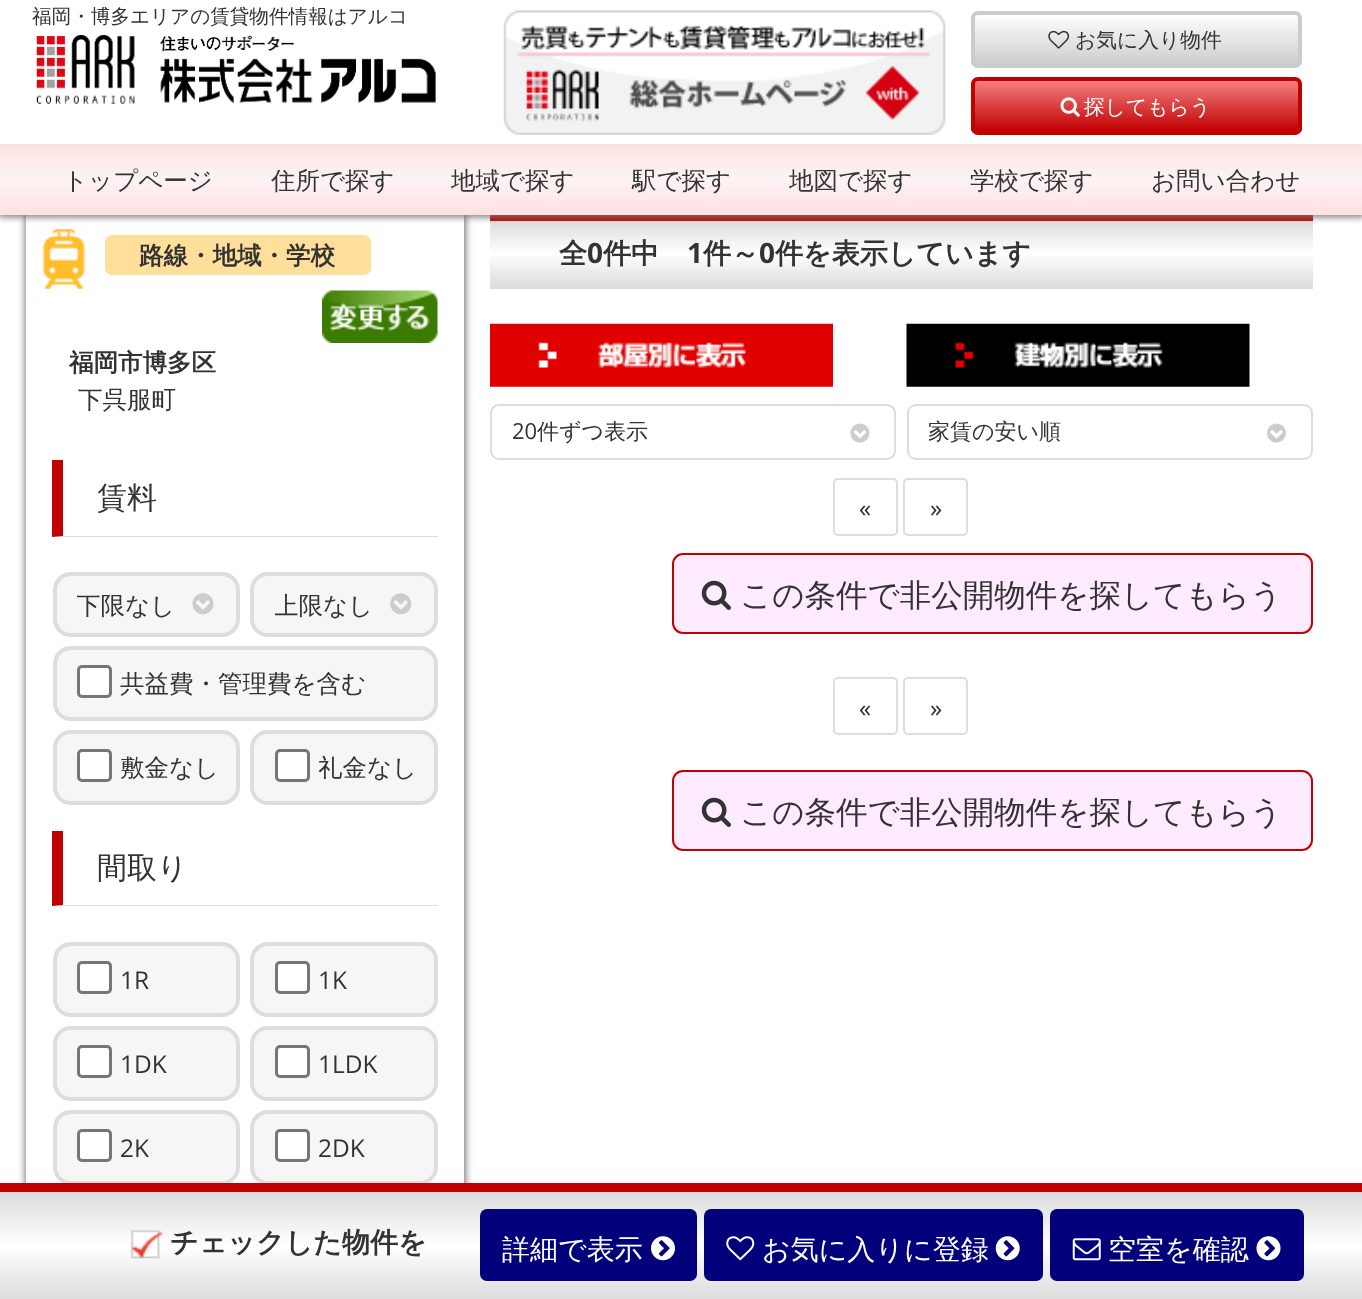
<svg xmlns="http://www.w3.org/2000/svg" width="1362" height="1299" viewBox="0 0 1362 1299">
  <defs>
    <linearGradient id="g1" gradientUnits="userSpaceOnUse" x1="901" y1="220" x2="901" y2="287"><stop offset="0" stop-color="#dcdcdc"/><stop offset="0.5" stop-color="#ffffff"/><stop offset="1" stop-color="#dcdcdc"/></linearGradient>
    <filter id="blur1" x="-50%" y="-200%" width="200%" height="500%"><feGaussianBlur stdDeviation="3.5"/></filter>
    <clipPath id="clip1"><rect x="971" y="11" width="331" height="57" rx="7"/></clipPath>
    <linearGradient id="g2" gradientUnits="userSpaceOnUse" x1="1137" y1="14" x2="1137" y2="65"><stop offset="0" stop-color="#ffffff"/><stop offset="1" stop-color="#cccccc"/></linearGradient>
    <clipPath id="clip2"><rect x="971" y="77" width="331" height="58" rx="7"/></clipPath>
    <linearGradient id="g3" gradientUnits="userSpaceOnUse" x1="1137" y1="80" x2="1137" y2="131"><stop offset="0" stop-color="#f48281"/><stop offset="1" stop-color="#c10000"/></linearGradient>
    <clipPath id="clip3"><path d="M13 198H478V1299H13ZM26 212H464V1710H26Z" clip-rule="evenodd"/></clipPath>
    <linearGradient id="g4" gradientUnits="userSpaceOnUse" x1="682" y1="143" x2="682" y2="215"><stop offset="0" stop-color="#fee0e2"/><stop offset="0.5" stop-color="#fdf3f4"/><stop offset="1" stop-color="#fee0e2"/></linearGradient>
    <clipPath id="clip4"><rect x="77" y="586" width="138" height="37"/></clipPath>
    <clipPath id="clip5"><rect x="275" y="586" width="138" height="37"/></clipPath>
    <linearGradient id="g5" gradientUnits="userSpaceOnUse" x1="901" y1="287" x2="901" y2="354"><stop offset="0" stop-color="#dcdcdc"/><stop offset="0.5" stop-color="#ffffff"/><stop offset="1" stop-color="#dcdcdc"/></linearGradient>
    <linearGradient id="g6" gradientUnits="userSpaceOnUse" x1="682" y1="1192" x2="682" y2="1299"><stop offset="0" stop-color="#dcdcdc"/><stop offset="0.5" stop-color="#ffffff"/><stop offset="1" stop-color="#dcdcdc"/></linearGradient>
  </defs>
  <rect width="100%" height="100%" fill="#ffffff"/>
  <rect x="490" y="221" width="823" height="66" fill="url(#g1)"/>
  <rect x="490" y="215" width="823" height="6" fill="#c10000"/>
  <rect x="-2" y="-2" width="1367" height="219" fill="#787878" filter="url(#blur1)"/>
  <rect x="0" y="0" width="1362" height="144" fill="#ffffff"/>
  <text x="32" y="23" font-family="WenQuanYi Zen Hei" font-size="19.6" font-weight="500" fill="#333333">福岡・博多エリアの賃貸物件情報はアルコ</text>
  <image x="36" y="35" width="400" height="69" href="img1.png"/>
  <image x="503" y="10" width="443" height="125" href="img2.png"/>
  <g clip-path="url(#clip1)">
    <rect x="971" y="14" width="331" height="51" fill="url(#g2)"/>
  </g>
  <rect x="973" y="13" width="327" height="53" rx="5" fill="none" stroke="#cccccc" stroke-width="4"/>
  <image x="1048" y="30" width="22" height="19" href="img3.png"/>
  <text x="1075" y="47" font-family="WenQuanYi Zen Hei" font-size="20.75" font-weight="500" fill="#333333">お気に入り物件</text>
  <g clip-path="url(#clip2)">
    <rect x="971" y="81" width="331" height="50" fill="url(#g3)"/>
  </g>
  <rect x="973" y="79" width="327" height="54" rx="5" fill="none" stroke="#c10000" stroke-width="4"/>
  <image x="1060" y="97" width="20" height="20" href="img4.png"/>
  <text x="1084" y="114" font-family="WenQuanYi Zen Hei" font-size="20.75" font-weight="500" fill="#ffffff">探してもらう</text>
  <g clip-path="url(#clip3)">
    <rect x="25" y="210" width="441" height="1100" fill="#787878" filter="url(#blur1)"/>
  </g>
  <rect x="0" y="144" width="1362" height="71" fill="url(#g4)"/>
  <text x="63" y="189" font-family="WenQuanYi Zen Hei" font-size="24.5" font-weight="500" fill="#333333">トップページ</text>
  <text x="271" y="189" font-family="WenQuanYi Zen Hei" font-size="24.5" font-weight="500" fill="#333333">住所で探す</text>
  <text x="451" y="189" font-family="WenQuanYi Zen Hei" font-size="24.5" font-weight="500" fill="#333333">地域で探す</text>
  <text x="632" y="189" font-family="WenQuanYi Zen Hei" font-size="24.5" font-weight="500" fill="#333333">駅で探す</text>
  <text x="789" y="189" font-family="WenQuanYi Zen Hei" font-size="24.5" font-weight="500" fill="#333333">地図で探す</text>
  <text x="970" y="189" font-family="WenQuanYi Zen Hei" font-size="24.5" font-weight="500" fill="#333333">学校で探す</text>
  <text x="1151" y="189" font-family="WenQuanYi Zen Hei" font-size="24.5" font-weight="500" fill="#333333">お問い合わせ</text>
  <image x="42" y="229" width="44" height="60" href="img5.png"/>
  <rect x="105" y="235" width="266" height="40" rx="7" fill="#ffdf99"/>
  <text x="139" y="264" font-family="WenQuanYi Zen Hei" font-size="24.5" font-weight="bold" fill="#333333">路線・地域・学校</text>
  <image x="322" y="290" width="116" height="53" href="img6.png"/>
  <text x="69" y="371" font-family="WenQuanYi Zen Hei" font-size="24.5" font-weight="bold" fill="#333333">福岡市博多区</text>
  <text x="78" y="408" font-family="WenQuanYi Zen Hei" font-size="24.5" font-weight="500" fill="#333333">下呉服町</text>
  <path d="M438 537H52L63 536H438Z" fill="#dddddd"/>
  <path d="M52 537V460H63V536Z" fill="#c10000"/>
  <text x="97" y="508" font-family="WenQuanYi Zen Hei" font-size="30" font-weight="500" fill="#333333">賃料</text>
  <rect x="53" y="572" width="187" height="65" rx="18" fill="#f6f6f6"/>
  <image x="192" y="593" width="22" height="22" href="img7.png"/>
  <rect x="55" y="574" width="183" height="61" rx="16" fill="none" stroke="#dddddd" stroke-width="4"/>
  <g clip-path="url(#clip4)">
    <text x="76" y="614" font-family="WenQuanYi Zen Hei" font-size="24.5" font-weight="500" fill="#333333">下限なし</text>
  </g>
  <rect x="250" y="572" width="188" height="65" rx="18" fill="#f6f6f6"/>
  <image x="390" y="593" width="22" height="22" href="img8.png"/>
  <rect x="252" y="574" width="184" height="61" rx="16" fill="none" stroke="#dddddd" stroke-width="4"/>
  <g clip-path="url(#clip5)">
    <text x="274" y="614" font-family="WenQuanYi Zen Hei" font-size="24.5" font-weight="500" fill="#333333">上限なし</text>
  </g>
  <rect x="55" y="648" width="381" height="71" rx="16" fill="#f6f6f6" stroke="#dddddd" stroke-width="4"/>
  <rect x="78.5" y="666.5" width="32" height="30" rx="3.5" fill="#ffffff" stroke="#767676" stroke-width="3"/>
  <text x="120" y="692" font-family="WenQuanYi Zen Hei" font-size="24.5" font-weight="500" fill="#333333">共益費・管理費を含む</text>
  <rect x="55" y="732" width="183" height="71" rx="16" fill="#f6f6f6" stroke="#dddddd" stroke-width="4"/>
  <rect x="78.5" y="750.5" width="32" height="30" rx="3.5" fill="#ffffff" stroke="#767676" stroke-width="3"/>
  <text x="120" y="776" font-family="WenQuanYi Zen Hei" font-size="24.5" font-weight="500" fill="#333333">敷金なし</text>
  <rect x="252" y="732" width="184" height="71" rx="16" fill="#f6f6f6" stroke="#dddddd" stroke-width="4"/>
  <rect x="276.5" y="750.5" width="32" height="30" rx="3.5" fill="#ffffff" stroke="#767676" stroke-width="3"/>
  <text x="318" y="776" font-family="WenQuanYi Zen Hei" font-size="24.5" font-weight="500" fill="#333333">礼金なし</text>
  <path d="M438 906H52L63 905H438Z" fill="#dddddd"/>
  <path d="M52 906V831H63V905Z" fill="#c10000"/>
  <text x="97" y="878" font-family="WenQuanYi Zen Hei" font-size="30" font-weight="500" fill="#333333">間取り</text>
  <rect x="55" y="944" width="183" height="71" rx="16" fill="#f6f6f6" stroke="#dddddd" stroke-width="4"/>
  <rect x="78.5" y="962.5" width="32" height="30" rx="3.5" fill="#ffffff" stroke="#767676" stroke-width="3"/>
  <text x="120" y="989" font-family="Open Sans" font-size="24.5" fill="#333333">1R</text>
  <rect x="252" y="944" width="184" height="71" rx="16" fill="#f6f6f6" stroke="#dddddd" stroke-width="4"/>
  <rect x="276.5" y="962.5" width="32" height="30" rx="3.5" fill="#ffffff" stroke="#767676" stroke-width="3"/>
  <text x="318" y="989" font-family="Open Sans" font-size="24.5" fill="#333333">1K</text>
  <rect x="55" y="1028" width="183" height="71" rx="16" fill="#f6f6f6" stroke="#dddddd" stroke-width="4"/>
  <rect x="78.5" y="1046.5" width="32" height="30" rx="3.5" fill="#ffffff" stroke="#767676" stroke-width="3"/>
  <text x="120" y="1073" font-family="Open Sans" font-size="24.5" fill="#333333">1DK</text>
  <rect x="252" y="1028" width="184" height="71" rx="16" fill="#f6f6f6" stroke="#dddddd" stroke-width="4"/>
  <rect x="276.5" y="1046.5" width="32" height="30" rx="3.5" fill="#ffffff" stroke="#767676" stroke-width="3"/>
  <text x="318" y="1073" font-family="Open Sans" font-size="24.5" fill="#333333">1LDK</text>
  <rect x="55" y="1112" width="183" height="71" rx="16" fill="#f6f6f6" stroke="#dddddd" stroke-width="4"/>
  <rect x="78.5" y="1130.5" width="32" height="30" rx="3.5" fill="#ffffff" stroke="#767676" stroke-width="3"/>
  <text x="120" y="1157" font-family="Open Sans" font-size="24.5" fill="#333333">2K</text>
  <rect x="252" y="1112" width="184" height="71" rx="16" fill="#f6f6f6" stroke="#dddddd" stroke-width="4"/>
  <rect x="276.5" y="1130.5" width="32" height="30" rx="3.5" fill="#ffffff" stroke="#767676" stroke-width="3"/>
  <text x="318" y="1157" font-family="Open Sans" font-size="24.5" fill="#333333">2DK</text>
  <rect x="490" y="287" width="823" height="2" fill="url(#g5)"/>
  <text x="559" y="263" font-family="WenQuanYi Zen Hei" font-size="28" font-weight="bold" fill="#333333">全</text>
  <text x="587" y="263" font-family="Open Sans" font-size="28" font-weight="bold" fill="#333333">0</text>
  <text x="603" y="263" font-family="WenQuanYi Zen Hei" font-size="28" font-weight="bold" fill="#333333">件中</text>
  <text x="687" y="263" font-family="Open Sans" font-size="28" font-weight="bold" fill="#333333">1</text>
  <text x="703" y="263" font-family="WenQuanYi Zen Hei" font-size="28" font-weight="bold" fill="#333333">件～</text>
  <text x="759" y="263" font-family="Open Sans" font-size="28" font-weight="bold" fill="#333333">0</text>
  <text x="775" y="263" font-family="WenQuanYi Zen Hei" font-size="28" font-weight="bold" fill="#333333">件を表示しています</text>
  <image x="490" y="323" width="343" height="64" href="img9.png"/>
  <image x="906" y="323" width="344" height="64" href="img10.png"/>
  <image x="850" y="423" width="20" height="20" href="img11.png"/>
  <rect x="491" y="405" width="404" height="54" rx="8" fill="none" stroke="#dddddd" stroke-width="2"/>
  <text x="512" y="439" font-family="Open Sans" font-size="22" fill="#333333">20</text>
  <text x="537" y="439" font-family="WenQuanYi Zen Hei" font-size="22" font-weight="500" fill="#333333">件ずつ表示</text>
  <image x="1267" y="423" width="19" height="20" href="img12.png"/>
  <rect x="908" y="405" width="404" height="54" rx="8" fill="none" stroke="#dddddd" stroke-width="2"/>
  <text x="928" y="439" font-family="WenQuanYi Zen Hei" font-size="22" font-weight="500" fill="#333333">家賃の安い順</text>
  <rect x="834" y="479" width="63" height="56" rx="4" fill="none" stroke="#dddddd" stroke-width="2"/>
  <text x="859" y="517" font-family="Open Sans" font-size="24.5" fill="#333333">«</text>
  <rect x="904" y="479" width="63" height="56" rx="4" fill="none" stroke="#dddddd" stroke-width="2"/>
  <text x="930" y="517" font-family="Open Sans" font-size="24.5" fill="#333333">»</text>
  <rect x="673" y="554" width="639" height="79" rx="10" fill="#ffebff" stroke="#c10000" stroke-width="2"/>
  <image x="701" y="580" width="30" height="30" href="img13.png"/>
  <text x="740" y="606" font-family="WenQuanYi Zen Hei" font-size="31.5" font-weight="500" fill="#333333">この条件で非公開物件を探してもらう</text>
  <rect x="834" y="678" width="63" height="56" rx="4" fill="none" stroke="#dddddd" stroke-width="2"/>
  <text x="859" y="717" font-family="Open Sans" font-size="24.5" fill="#333333">«</text>
  <rect x="904" y="678" width="63" height="56" rx="4" fill="none" stroke="#dddddd" stroke-width="2"/>
  <text x="930" y="717" font-family="Open Sans" font-size="24.5" fill="#333333">»</text>
  <rect x="673" y="771" width="639" height="79" rx="10" fill="#ffebff" stroke="#c10000" stroke-width="2"/>
  <image x="701" y="797" width="30" height="30" href="img13.png"/>
  <text x="740" y="823" font-family="WenQuanYi Zen Hei" font-size="31.5" font-weight="500" fill="#333333">この条件で非公開物件を探してもらう</text>
  <rect x="0" y="1192" width="1362" height="107" fill="url(#g6)"/>
  <rect x="0" y="1183" width="1362" height="9" fill="#c10000"/>
  <image x="131" y="1230" width="33" height="29" href="img14.png"/>
  <text x="170" y="1252" font-family="WenQuanYi Zen Hei" font-size="28" font-weight="bold" fill="#333333">チェックした物件を</text>
  <rect x="481" y="1210" width="215" height="70" rx="6" fill="#02007b" stroke="#02007b" stroke-width="2"/>
  <text x="502" y="1259" font-family="WenQuanYi Zen Hei" font-size="28" font-weight="500" fill="#ffffff">詳細で表示</text>
  <image x="651" y="1236" width="24" height="25" href="img15.png"/>
  <rect x="705" y="1210" width="337" height="70" rx="6" fill="#02007b" stroke="#02007b" stroke-width="2"/>
  <image x="726" y="1236" width="29" height="25" href="img16.png"/>
  <text x="762" y="1259" font-family="WenQuanYi Zen Hei" font-size="28" font-weight="500" fill="#ffffff">お気に入りに登録</text>
  <image x="995" y="1236" width="25" height="25" href="img17.png"/>
  <rect x="1051" y="1210" width="252" height="70" rx="6" fill="#02007b" stroke="#02007b" stroke-width="2"/>
  <image x="1072" y="1238" width="29" height="23" href="img18.png"/>
  <text x="1108" y="1259" font-family="WenQuanYi Zen Hei" font-size="28" font-weight="500" fill="#ffffff">空室を確認</text>
  <image x="1256" y="1236" width="25" height="25" href="img19.png"/>
</svg>
